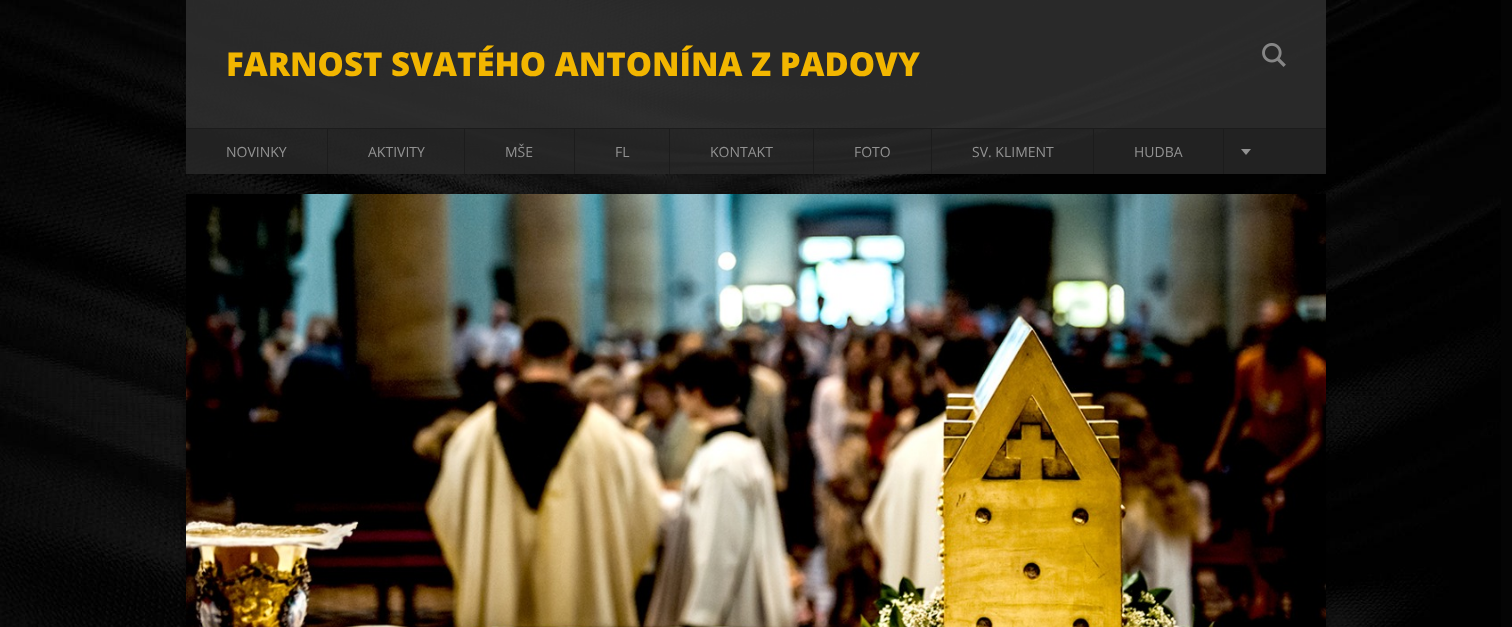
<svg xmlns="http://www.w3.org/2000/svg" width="1512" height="627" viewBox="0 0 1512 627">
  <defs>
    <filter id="blur1" x="-50%" y="-200%" width="200%" height="500%"><feGaussianBlur stdDeviation="4.5"/></filter>
  </defs>
  <rect width="100%" height="100%" fill="#040404"/>
  <image x="0" y="0" width="1501" height="627" href="img1.png"/>
  <rect x="186" y="0" width="1140" height="128" fill="#303030" fill-opacity="0.85"/>
  <text x="226" y="76" font-family="Open Sans" font-size="33" font-weight="800" fill="#f2b600">FARNOST SVATÉHO ANTONÍNA Z PADOVY</text>
  <image x="1262" y="43" width="24" height="24" href="img2.png"/>
  <rect x="186" y="128" width="1140" height="1" fill="#1c1c1c"/>
  <rect x="186" y="129" width="1140" height="45" fill="#282828" fill-opacity="0.85"/>
  <rect x="327" y="129" width="1" height="45" fill="#1c1c1c"/>
  <text x="226" y="157" font-family="Open Sans" font-size="14" fill="#929292">NOVINKY</text>
  <rect x="464" y="129" width="1" height="45" fill="#1c1c1c"/>
  <text x="368" y="157" font-family="Open Sans" font-size="14" fill="#929292">AKTIVITY</text>
  <rect x="574" y="129" width="1" height="45" fill="#1c1c1c"/>
  <text x="505" y="157" font-family="Open Sans" font-size="14" fill="#929292">MŠE</text>
  <rect x="669" y="129" width="1" height="45" fill="#1c1c1c"/>
  <text x="615" y="157" font-family="Open Sans" font-size="14" fill="#929292">FL</text>
  <rect x="813" y="129" width="1" height="45" fill="#1c1c1c"/>
  <text x="710" y="157" font-family="Open Sans" font-size="14" fill="#929292">KONTAKT</text>
  <rect x="931" y="129" width="1" height="45" fill="#1c1c1c"/>
  <text x="854" y="157" font-family="Open Sans" font-size="14" fill="#929292">FOTO</text>
  <rect x="1093" y="129" width="1" height="45" fill="#1c1c1c"/>
  <text x="972" y="157" font-family="Open Sans" font-size="14" fill="#929292">SV. KLIMENT</text>
  <rect x="1223" y="129" width="1" height="45" fill="#1c1c1c"/>
  <text x="1134" y="157" font-family="Open Sans" font-size="14" fill="#929292">HUDBA</text>
  <path d="M1241 149H1251L1246 155Z" fill="#929292"/>
  <rect x="183" y="191" width="1146" height="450" fill="#000000" fill-opacity="0.25" filter="url(#blur1)"/>
  <image x="186" y="194" width="1140" height="433" href="img3.png"/>
</svg>
